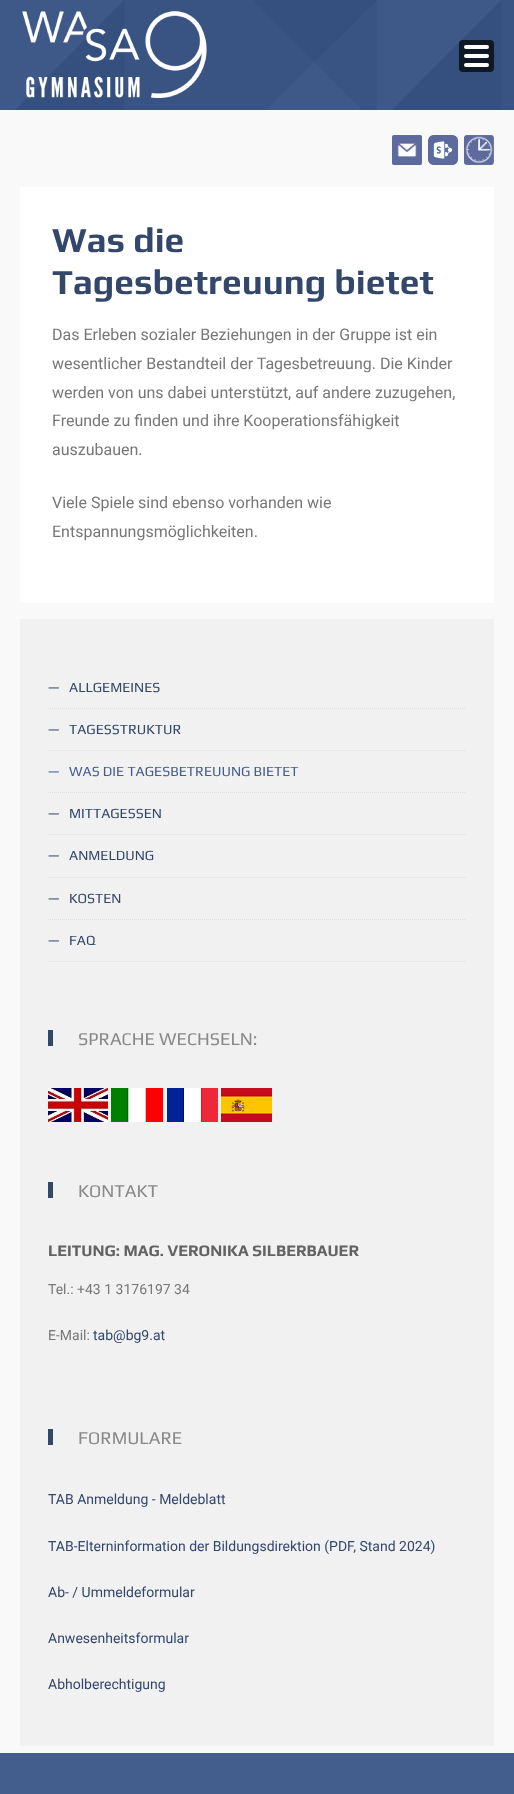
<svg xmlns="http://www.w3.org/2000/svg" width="514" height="1794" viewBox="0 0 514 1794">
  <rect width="100%" height="100%" fill="#f9f9f9"/>
  <image x="0" y="0" width="514" height="110" href="img1.png"/>
  <image x="22" y="11" width="185" height="88" href="img2.png"/>
  <rect x="459" y="40" width="35" height="32" rx="4" fill="#101826"/>
  <rect x="464" y="45" width="25" height="4" rx="2" fill="#ffffff"/>
  <rect x="464" y="54" width="25" height="4" rx="2" fill="#ffffff"/>
  <rect x="464" y="63" width="25" height="4" rx="2" fill="#ffffff"/>
  <image x="392" y="135" width="30" height="30" href="img3.png"/>
  <image x="428" y="135" width="30" height="30" href="img4.png"/>
  <image x="464" y="135" width="30" height="30" href="img5.png"/>
  <rect x="20" y="187" width="474" height="416" fill="#ffffff"/>
  <text x="52" y="252" font-family="Play" font-size="35.25" font-weight="bold" fill="#33476b">Was die</text>
  <text x="52" y="294" font-family="Play" font-size="35.25" font-weight="bold" fill="#33476b">Tagesbetreuung bietet</text>
  <text x="52" y="340" font-family="Roboto" font-size="16" fill="#777777">Das Erleben sozialer Beziehungen in der Gruppe ist ein</text>
  <text x="52" y="369" font-family="Roboto" font-size="16" fill="#777777">wesentlicher Bestandteil der Tagesbetreuung. Die Kinder</text>
  <text x="52" y="398" font-family="Roboto" font-size="16" fill="#777777">werden von uns dabei unterstützt, auf andere zuzugehen,</text>
  <text x="52" y="426" font-family="Roboto" font-size="16" fill="#777777">Freunde zu finden und ihre Kooperationsfähigkeit</text>
  <text x="52" y="455" font-family="Roboto" font-size="16" fill="#777777">auszubauen.</text>
  <text x="52" y="508" font-family="Roboto" font-size="16" fill="#777777">Viele Spiele sind ebenso vorhanden wie</text>
  <text x="52" y="537" font-family="Roboto" font-size="16" fill="#777777">Entspannungsmöglichkeiten.</text>
  <rect x="20" y="619" width="474" height="1127" fill="#f1f1f1"/>
  <path d="M48 708.5H466" fill="none" stroke="#dedede" stroke-dasharray="1 1"/>
  <text x="48" y="692" font-family="Play" font-size="14" fill="#33476b">—</text>
  <text x="69" y="692" font-family="Play" font-size="14" fill="#33476b">ALLGEMEINES</text>
  <path d="M48 750.5H466" fill="none" stroke="#dedede" stroke-dasharray="1 1"/>
  <text x="48" y="734" font-family="Play" font-size="14" fill="#33476b">—</text>
  <text x="69" y="734" font-family="Play" font-size="14" fill="#33476b">TAGESSTRUKTUR</text>
  <path d="M48 792.5H466" fill="none" stroke="#dedede" stroke-dasharray="1 1"/>
  <text x="48" y="776" font-family="Play" font-size="14" fill="#435e8d">—</text>
  <text x="69" y="776" font-family="Play" font-size="14" fill="#435e8d">WAS DIE TAGESBETREUUNG BIETET</text>
  <path d="M48 834.5H466" fill="none" stroke="#dedede" stroke-dasharray="1 1"/>
  <text x="48" y="818" font-family="Play" font-size="14" fill="#33476b">—</text>
  <text x="69" y="818" font-family="Play" font-size="14" fill="#33476b">MITTAGESSEN</text>
  <path d="M48 877.5H466" fill="none" stroke="#dedede" stroke-dasharray="1 1"/>
  <text x="48" y="860" font-family="Play" font-size="14" fill="#33476b">—</text>
  <text x="69" y="860" font-family="Play" font-size="14" fill="#33476b">ANMELDUNG</text>
  <path d="M48 919.5H466" fill="none" stroke="#dedede" stroke-dasharray="1 1"/>
  <text x="48" y="903" font-family="Play" font-size="14" fill="#33476b">—</text>
  <text x="69" y="903" font-family="Play" font-size="14" fill="#33476b">KOSTEN</text>
  <path d="M48 961.5H466" fill="none" stroke="#dedede" stroke-dasharray="1 1"/>
  <text x="48" y="945" font-family="Play" font-size="14" fill="#33476b">—</text>
  <text x="69" y="945" font-family="Play" font-size="14" fill="#33476b">FAQ</text>
  <rect x="48" y="1030" width="5" height="16" fill="#33476b"/>
  <text x="78" y="1045" font-family="Play" font-size="18" fill="#898989">SPRACHE WECHSELN:</text>
  <image x="48" y="1088" width="60" height="34" href="img6.png"/>
  <image x="111" y="1088" width="52" height="34" href="img7.png"/>
  <image x="167" y="1088" width="51" height="34" href="img8.png"/>
  <image x="221" y="1088" width="51" height="34" href="img9.png"/>
  <rect x="48" y="1182" width="5" height="16" fill="#33476b"/>
  <text x="78" y="1197" font-family="Play" font-size="18" fill="#898989">KONTAKT</text>
  <text x="48" y="1256" font-family="Play" font-size="16" font-weight="bold" fill="#636363">LEITUNG: MAG. VERONIKA SILBERBAUER</text>
  <text x="48" y="1294" font-family="Roboto" font-size="14" fill="#777777">Tel.: +43 1 3176197 34</text>
  <text x="48" y="1340" font-family="Roboto" font-size="14" fill="#777777">E-Mail:</text>
  <text x="93" y="1340" font-family="Roboto" font-size="14" fill="#33476b">tab@bg9.at</text>
  <rect x="48" y="1429" width="5" height="16" fill="#33476b"/>
  <text x="78" y="1444" font-family="Play" font-size="18" fill="#898989">FORMULARE</text>
  <text x="48" y="1504" font-family="Roboto" font-size="14" fill="#33476b">TAB Anmeldung - Meldeblatt</text>
  <text x="48" y="1551" font-family="Roboto" font-size="14" fill="#33476b">TAB-Elterninformation der Bildungsdirektion (PDF, Stand 2024)</text>
  <text x="48" y="1597" font-family="Roboto" font-size="14" fill="#33476b">Ab- / Ummeldeformular</text>
  <text x="48" y="1643" font-family="Roboto" font-size="14" fill="#33476b">Anwesenheitsformular</text>
  <text x="48" y="1689" font-family="Roboto" font-size="14" fill="#33476b">Abholberechtigung</text>
  <rect x="0" y="1753" width="514" height="41" fill="#435e8d"/>
</svg>
